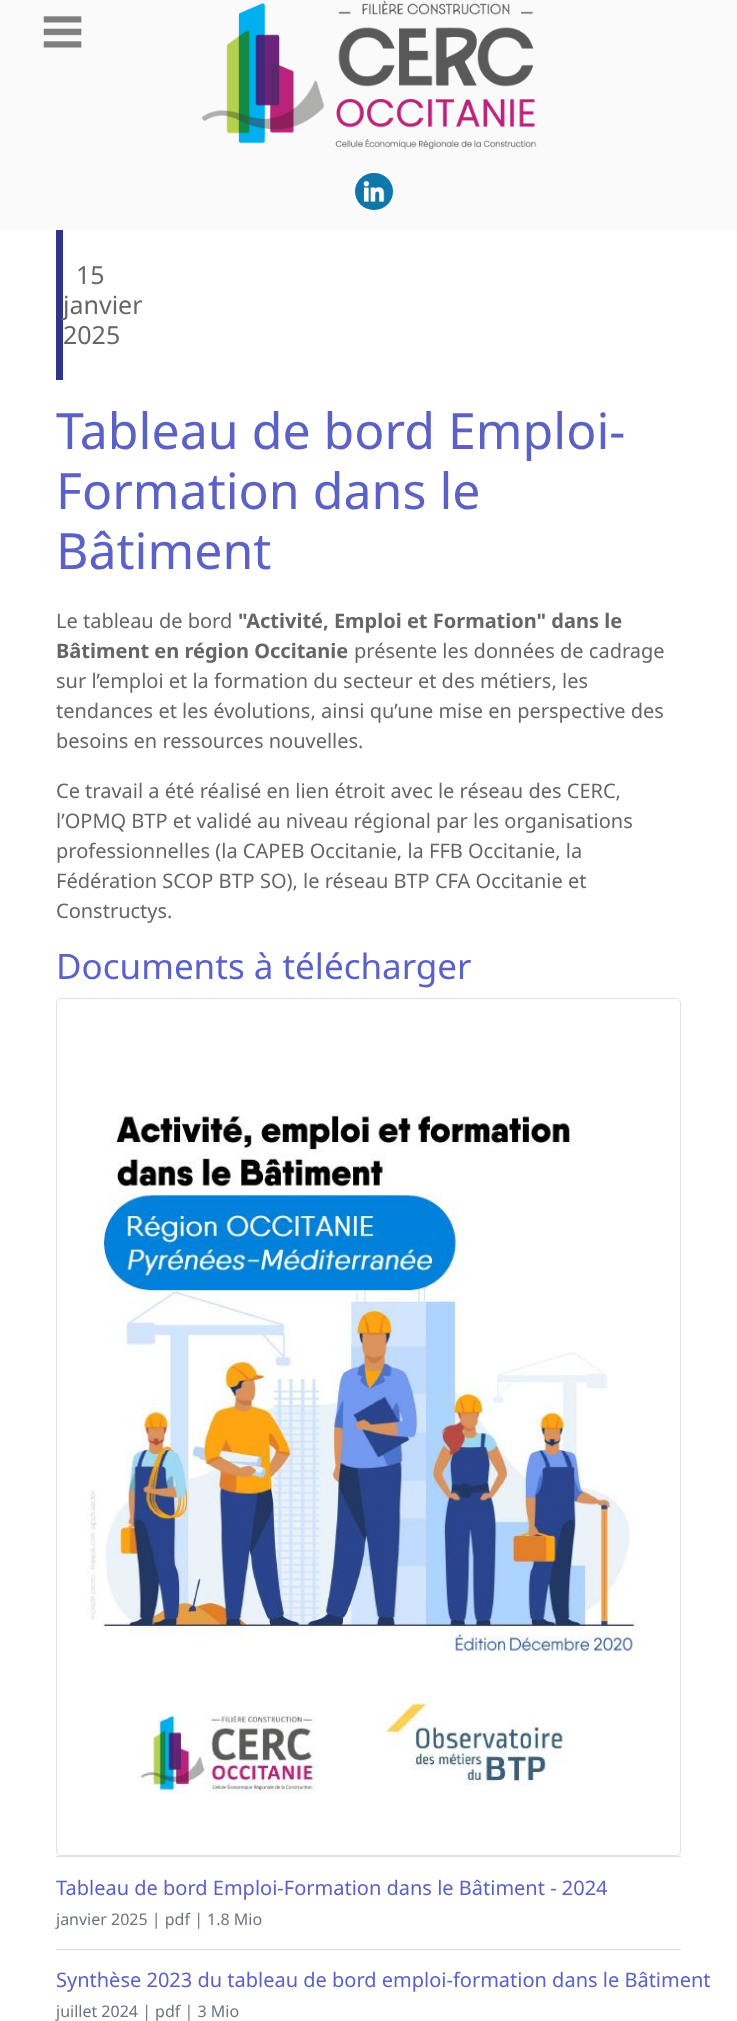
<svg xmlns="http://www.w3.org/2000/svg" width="737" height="2021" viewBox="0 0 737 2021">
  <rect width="100%" height="100%" fill="#ffffff"/>
  <rect x="0" y="0" width="737" height="230" fill="#fafafa"/>
  <image x="43" y="16" width="39" height="32" href="img1.png"/>
  <image x="201" y="0" width="336" height="150" href="img2.png"/>
  <rect x="355" y="173" width="38" height="37" rx="18.5" fill="#0e76a8"/>
  <image x="363" y="180" width="22" height="22" href="img3.png"/>
  <rect x="56" y="230" width="7" height="150" fill="#31358a"/>
  <text x="76" y="284" font-family="Noto Sans" font-size="25" fill="#666666">15</text>
  <text x="63" y="314" font-family="Noto Sans" font-size="25" fill="#666666">janvier</text>
  <text x="63" y="344" font-family="Noto Sans" font-size="25" fill="#666666">2025</text>
  <text x="56" y="449" font-family="Noto Sans" font-size="50" fill="#5c61c5">Tableau de bord Emploi-</text>
  <text x="56" y="509" font-family="Noto Sans" font-size="50" fill="#5c61c5">Formation dans le</text>
  <text x="56" y="569" font-family="Noto Sans" font-size="50" fill="#5c61c5">Bâtiment</text>
  <text x="56" y="628" font-family="Noto Sans" font-size="20" fill="#666666">Le tableau de bord</text>
  <text x="238" y="628" font-family="Noto Sans" font-size="20" font-weight="bold" fill="#666666">"Activité, Emploi et Formation" dans le</text>
  <text x="56" y="658" font-family="Noto Sans" font-size="20" font-weight="bold" fill="#666666">Bâtiment en région Occitanie</text>
  <text x="354" y="658" font-family="Noto Sans" font-size="20" fill="#666666">présente les données de cadrage</text>
  <text x="56" y="688" font-family="Noto Sans" font-size="20" fill="#666666">sur l’emploi et la formation du secteur et des métiers, les</text>
  <text x="56" y="718" font-family="Noto Sans" font-size="20" fill="#666666">tendances et les évolutions, ainsi qu’une mise en perspective des</text>
  <text x="56" y="748" font-family="Noto Sans" font-size="20" fill="#666666">besoins en ressources nouvelles.</text>
  <text x="56" y="798" font-family="Noto Sans" font-size="20" fill="#666666">Ce travail a été réalisé en lien étroit avec le réseau des CERC,</text>
  <text x="56" y="828" font-family="Noto Sans" font-size="20" fill="#666666">l’OPMQ BTP et validé au niveau régional par les organisations</text>
  <text x="56" y="858" font-family="Noto Sans" font-size="20" fill="#666666">professionnelles (la CAPEB Occitanie, la FFB Occitanie, la</text>
  <text x="56" y="888" font-family="Noto Sans" font-size="20" fill="#666666">Fédération SCOP BTP SO), le réseau BTP CFA Occitanie et</text>
  <text x="56" y="918" font-family="Noto Sans" font-size="20" fill="#666666">Constructys.</text>
  <text x="56" y="979" font-family="Noto Sans" font-size="35" fill="#5c61c5">Documents à télécharger</text>
  <rect x="56.5" y="998.5" width="624" height="857" rx="4.5" fill="none" stroke="#dee2e6"/>
  <image x="86" y="1114" width="552" height="680" href="img4.png"/>
  <rect x="56" y="1856" width="625" height="1" fill="#dee2e6"/>
  <text x="56" y="1895" font-family="Noto Sans" font-size="20" fill="#5c61c5">Tableau de bord Emploi-Formation dans le Bâtiment - 2024</text>
  <text x="56" y="1925" font-family="Noto Sans" font-size="16" fill="#6c757d">janvier 2025 | pdf | 1.8 Mio</text>
  <rect x="56" y="1949" width="625" height="1" fill="#dfdfdf"/>
  <text x="56" y="1987" font-family="Noto Sans" font-size="20" fill="#5c61c5">Synthèse 2023 du tableau de bord emploi-formation dans le Bâtiment</text>
  <text x="56" y="2017" font-family="Noto Sans" font-size="16" fill="#6c757d">juillet 2024 | pdf | 3 Mio</text>
</svg>
